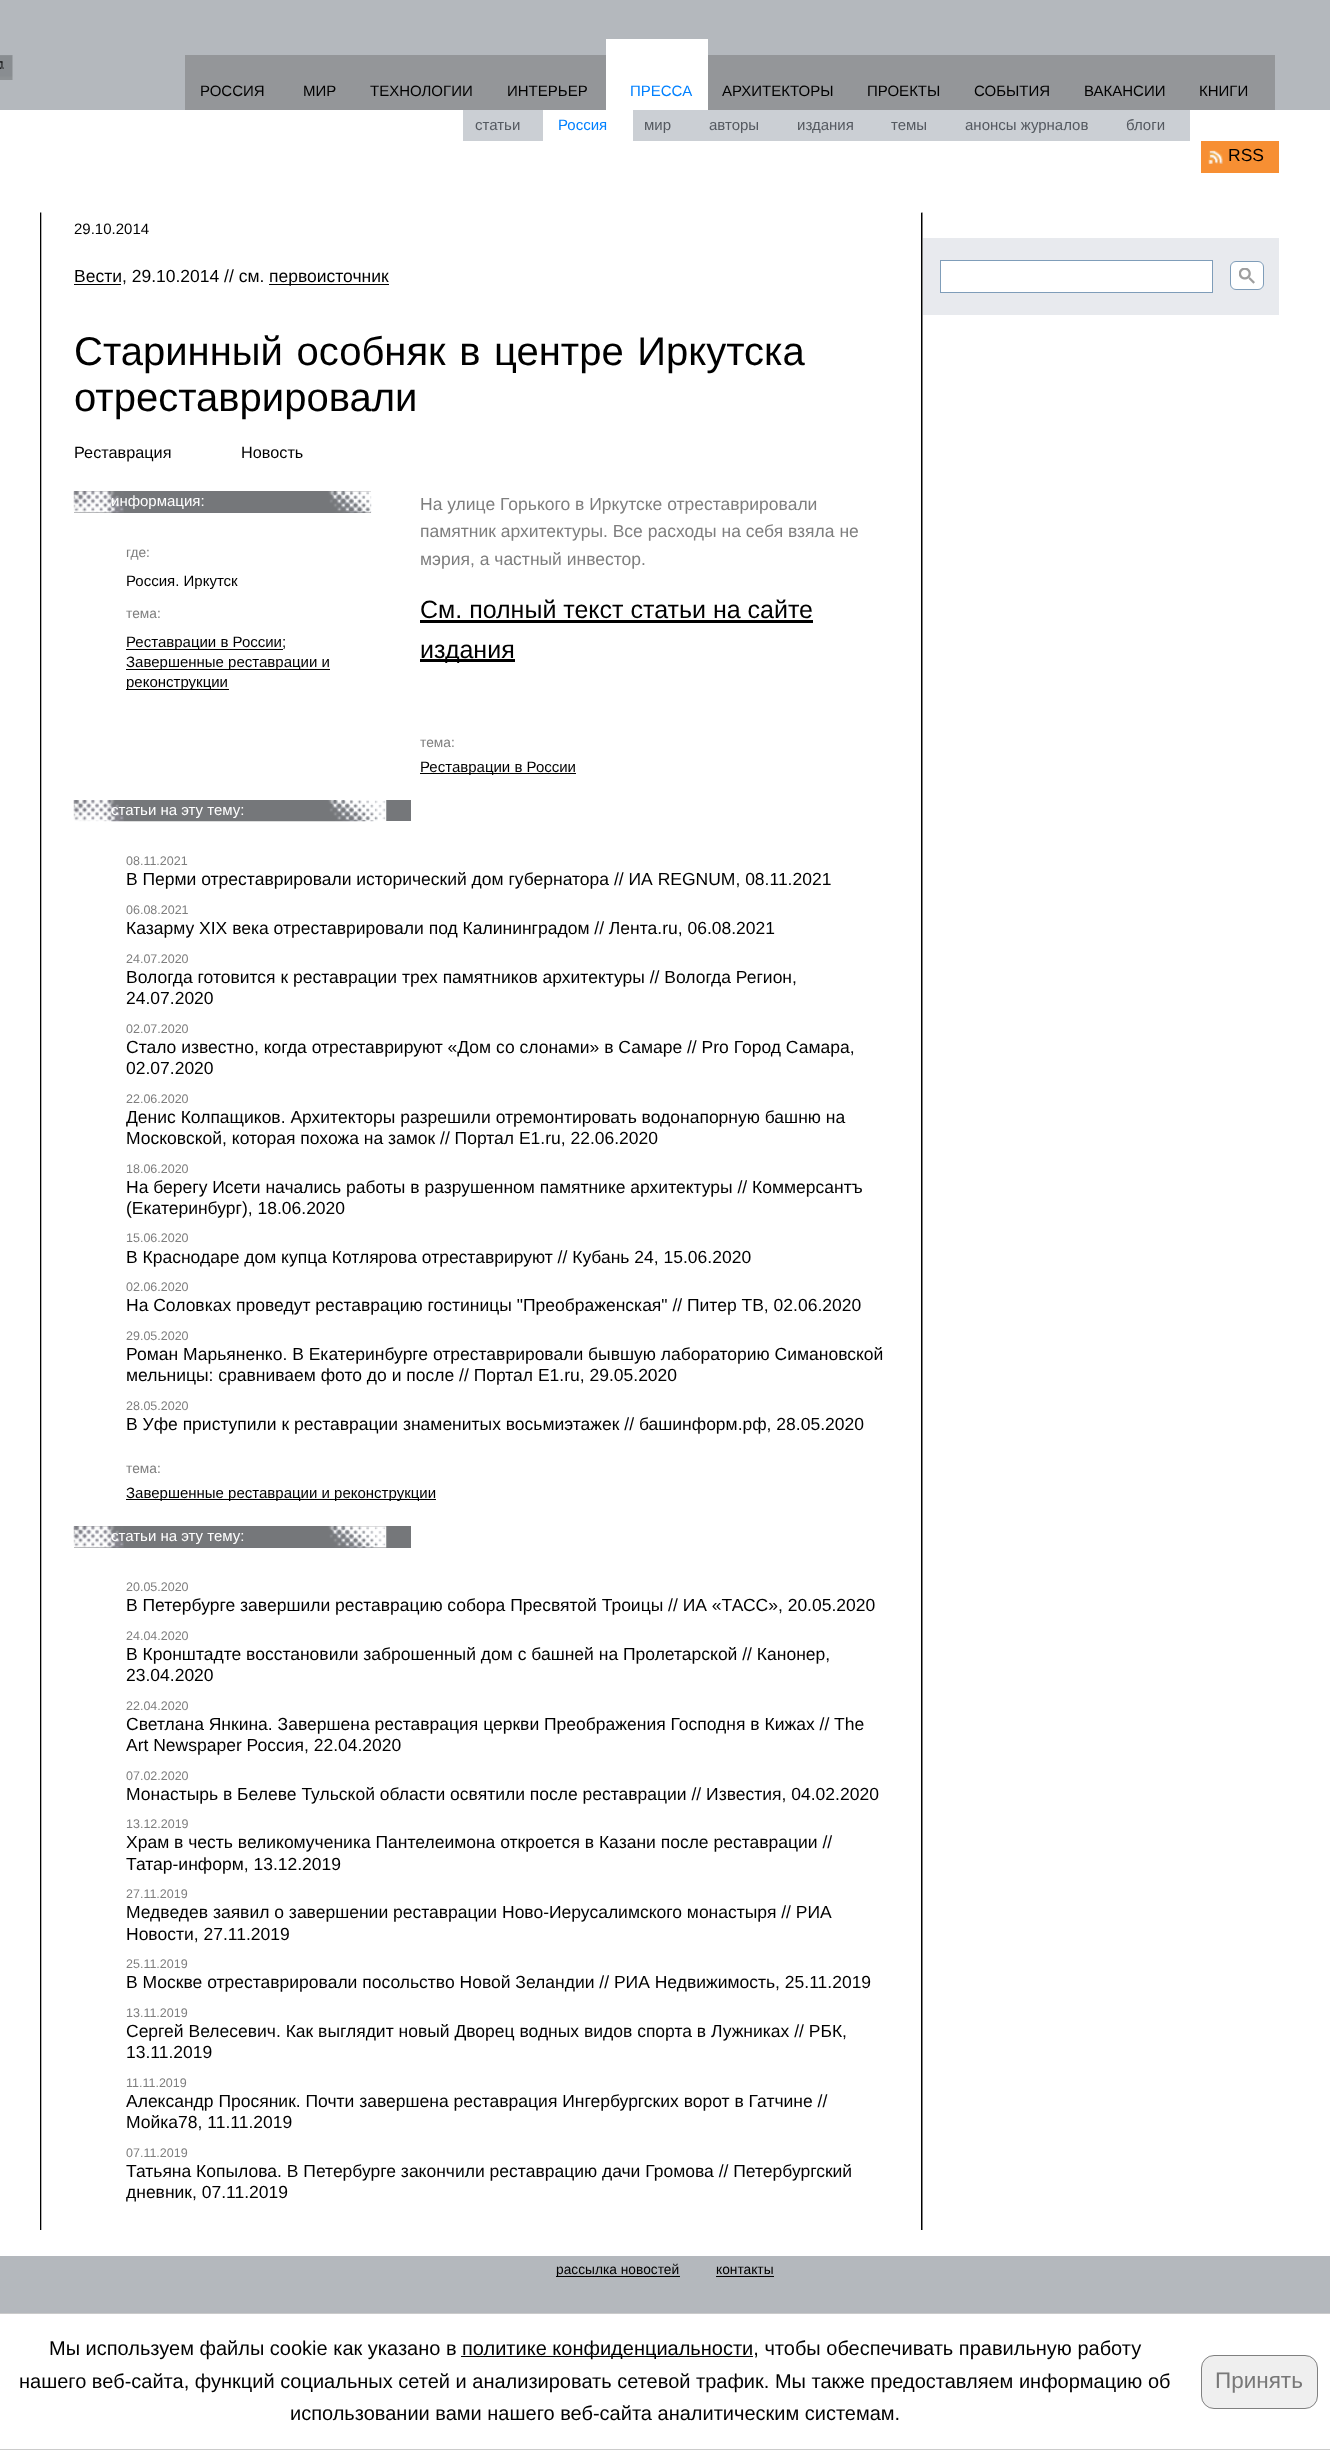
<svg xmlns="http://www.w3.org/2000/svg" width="1330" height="2450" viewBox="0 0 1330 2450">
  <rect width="100%" height="100%" fill="#b4b8bd"/>
  <image x="0" y="55" width="13" height="25" href="img1.png"/>
  <rect x="185" y="55" width="421" height="55" fill="#949699"/>
  <text x="200" y="96" font-family="Liberation Sans" font-size="15" fill="#000000">РОССИЯ</text>
  <text x="303" y="96" font-family="Liberation Sans" font-size="15" fill="#000000">МИР</text>
  <text x="370" y="96" font-family="Liberation Sans" font-size="15" fill="#000000">ТЕХНОЛОГИИ</text>
  <rect x="606" y="39" width="102" height="71" fill="#ffffff"/>
  <text x="630" y="96" font-family="Liberation Sans" font-size="15" fill="#0080ff">ПРЕССА</text>
  <rect x="0" y="110" width="1330" height="2146" fill="#ffffff"/>
  <rect x="463" y="110" width="80" height="31" fill="#cbcfd4"/>
  <text x="475" y="130" font-family="Liberation Sans" font-size="15" fill="#545960">статьи</text>
  <text x="558" y="130" font-family="Liberation Sans" font-size="15" fill="#0080ff">Россия</text>
  <rect x="633" y="110" width="557" height="31" fill="#cbcfd4"/>
  <text x="644" y="130" font-family="Liberation Sans" font-size="15" fill="#545960">мир</text>
  <text x="709" y="130" font-family="Liberation Sans" font-size="15" fill="#545960">авторы</text>
  <text x="797" y="130" font-family="Liberation Sans" font-size="15" fill="#545960">издания</text>
  <text x="891" y="130" font-family="Liberation Sans" font-size="15" fill="#545960">темы</text>
  <text x="965" y="130" font-family="Liberation Sans" font-size="15" fill="#545960">анонсы журналов</text>
  <text x="1126" y="130" font-family="Liberation Sans" font-size="15" fill="#545960">блоги</text>
  <text x="507" y="96" font-family="Liberation Sans" font-size="15" fill="#000000">ИНТЕРЬЕР</text>
  <rect x="708" y="55" width="567" height="55" fill="#949699"/>
  <text x="722" y="96" font-family="Liberation Sans" font-size="15" fill="#000000">АРХИТЕКТОРЫ</text>
  <text x="867" y="96" font-family="Liberation Sans" font-size="15" fill="#000000">ПРОЕКТЫ</text>
  <text x="974" y="96" font-family="Liberation Sans" font-size="15" fill="#000000">СОБЫТИЯ</text>
  <text x="1084" y="96" font-family="Liberation Sans" font-size="15" fill="#000000">ВАКАНСИИ</text>
  <text x="1199" y="96" font-family="Liberation Sans" font-size="15" fill="#000000">КНИГИ</text>
  <rect x="1201" y="141" width="78" height="32" fill="#f78f33"/>
  <image x="1208" y="150" width="15" height="14" href="img2.png"/>
  <text x="1228" y="161" font-family="Liberation Sans" font-size="17.5" fill="#000000">RSS</text>
  <image x="40" y="212" width="883" height="2018" href="img3.png"/>
  <rect x="921" y="213" width="1" height="2017" fill="#000000"/>
  <text x="74" y="234" font-family="Liberation Sans" font-size="15" fill="#000000">29.10.2014</text>
  <rect x="74" y="284" width="47" height="1" fill="#000000"/>
  <text x="74" y="282" font-family="Liberation Sans" font-size="17.5" fill="#000000">Вести, 29.10.2014 // см.</text>
  <rect x="269" y="284" width="120" height="1" fill="#000000"/>
  <text x="269" y="282" font-family="Liberation Sans" font-size="17.5" fill="#000000">первоисточник</text>
  <text x="74" y="365" word-spacing="2.5" font-family="Liberation Sans" font-size="40" fill="#000000">Старинный особняк в центре Иркутска</text>
  <text x="74" y="411" font-family="Liberation Sans" font-size="40" fill="#000000">отреставрировали</text>
  <text x="74" y="458" font-family="Liberation Sans" font-size="16.25" fill="#000000">Реставрация</text>
  <text x="241" y="458" font-family="Liberation Sans" font-size="16.25" fill="#000000">Новость</text>
  <rect x="74" y="491" width="297" height="22" fill="#75777a"/>
  <image x="73" y="491" width="299" height="22" href="img4.png"/>
  <text x="111" y="506" font-family="Liberation Sans" font-size="15" fill="#ffffff">информация:</text>
  <text x="126" y="557" font-family="Liberation Sans" font-size="13.75" fill="#7e7e7e">где:</text>
  <text x="126" y="586" font-family="Liberation Sans" font-size="15" fill="#000000">Россия. Иркутск</text>
  <text x="126" y="618" font-family="Liberation Sans" font-size="13.75" fill="#7e7e7e">тема:</text>
  <rect x="126" y="649" width="157" height="1" fill="#000000"/>
  <text x="126" y="647" font-family="Liberation Sans" font-size="15" fill="#000000">Реставрации в России;</text>
  <rect x="126" y="669" width="204" height="1" fill="#000000"/>
  <text x="126" y="667" font-family="Liberation Sans" font-size="15" fill="#000000">Завершенные реставрации и</text>
  <rect x="126" y="689" width="103" height="1" fill="#000000"/>
  <text x="126" y="687" font-family="Liberation Sans" font-size="15" fill="#000000">реконструкции</text>
  <text x="420" y="510" font-family="Liberation Sans" font-size="17.5" fill="#7e7e7e">На улице Горького в Иркутске отреставрировали</text>
  <text x="420" y="537" font-family="Liberation Sans" font-size="17.5" fill="#7e7e7e">памятник архитектуры. Все расходы на себя взяла не</text>
  <text x="420" y="565" font-family="Liberation Sans" font-size="17.5" fill="#7e7e7e">мэрия, а частный инвестор.</text>
  <text x="420" y="618" font-family="Liberation Sans" font-size="25" fill="#000000">См. полный текст статьи на сайте</text>
  <rect x="420" y="620" width="393" height="3" fill="#000000"/>
  <rect x="420" y="659" width="95" height="3" fill="#000000"/>
  <text x="420" y="658" font-family="Liberation Sans" font-size="25" fill="#000000">издания</text>
  <text x="420" y="747" font-family="Liberation Sans" font-size="13.75" fill="#7e7e7e">тема:</text>
  <rect x="420" y="773" width="156" height="1" fill="#000000"/>
  <text x="420" y="772" font-family="Liberation Sans" font-size="15" fill="#000000">Реставрации в России</text>
  <rect x="386" y="800" width="25" height="21" fill="#75777a"/>
  <image x="73" y="800" width="314" height="22" href="img5.png"/>
  <text x="111" y="815" font-family="Liberation Sans" font-size="15" fill="#ffffff">статьи на эту тему:</text>
  <text x="126" y="865" font-family="Liberation Sans" font-size="12.5" fill="#7e7e7e">08.11.2021</text>
  <text x="126" y="885" font-family="Liberation Sans" font-size="17.5" fill="#000000">В Перми отреставрировали исторический дом губернатора // ИА REGNUM, 08.11.2021</text>
  <text x="126" y="914" font-family="Liberation Sans" font-size="12.5" fill="#7e7e7e">06.08.2021</text>
  <text x="126" y="934" font-family="Liberation Sans" font-size="17.5" fill="#000000">Казарму XIX века отреставрировали под Калининградом // Лента.ru, 06.08.2021</text>
  <text x="126" y="963" font-family="Liberation Sans" font-size="12.5" fill="#7e7e7e">24.07.2020</text>
  <text x="126" y="983" font-family="Liberation Sans" font-size="17.5" fill="#000000">Вологда готовится к реставрации трех памятников архитектуры // Вологда Регион,</text>
  <text x="126" y="1004" font-family="Liberation Sans" font-size="17.5" fill="#000000">24.07.2020</text>
  <text x="126" y="1033" font-family="Liberation Sans" font-size="12.5" fill="#7e7e7e">02.07.2020</text>
  <text x="126" y="1053" font-family="Liberation Sans" font-size="17.5" fill="#000000">Стало известно, когда отреставрируют «Дом со слонами» в Самаре // Pro Город Самара,</text>
  <text x="126" y="1074" font-family="Liberation Sans" font-size="17.5" fill="#000000">02.07.2020</text>
  <text x="126" y="1103" font-family="Liberation Sans" font-size="12.5" fill="#7e7e7e">22.06.2020</text>
  <text x="126" y="1123" font-family="Liberation Sans" font-size="17.5" fill="#000000">Денис Колпащиков. Архитекторы разрешили отремонтировать водонапорную башню на</text>
  <text x="126" y="1144" font-family="Liberation Sans" font-size="17.5" fill="#000000">Московской, которая похожа на замок // Портал E1.ru, 22.06.2020</text>
  <text x="126" y="1173" font-family="Liberation Sans" font-size="12.5" fill="#7e7e7e">18.06.2020</text>
  <text x="126" y="1193" font-family="Liberation Sans" font-size="17.5" fill="#000000">На берегу Исети начались работы в разрушенном памятнике архитектуры // Коммерсантъ</text>
  <text x="126" y="1214" font-family="Liberation Sans" font-size="17.5" fill="#000000">(Екатеринбург), 18.06.2020</text>
  <text x="126" y="1242" font-family="Liberation Sans" font-size="12.5" fill="#7e7e7e">15.06.2020</text>
  <text x="126" y="1263" font-family="Liberation Sans" font-size="17.5" fill="#000000">В Краснодаре дом купца Котлярова отреставрируют // Кубань 24, 15.06.2020</text>
  <text x="126" y="1291" font-family="Liberation Sans" font-size="12.5" fill="#7e7e7e">02.06.2020</text>
  <text x="126" y="1311" font-family="Liberation Sans" font-size="17.5" fill="#000000">На Соловках проведут реставрацию гостиницы "Преображенская" // Питер ТВ, 02.06.2020</text>
  <text x="126" y="1340" font-family="Liberation Sans" font-size="12.5" fill="#7e7e7e">29.05.2020</text>
  <text x="126" y="1360" font-family="Liberation Sans" font-size="17.5" fill="#000000">Роман Марьяненко. В Екатеринбурге отреставрировали бывшую лабораторию Симановской</text>
  <text x="126" y="1381" font-family="Liberation Sans" font-size="17.5" fill="#000000">мельницы: сравниваем фото до и после // Портал E1.ru, 29.05.2020</text>
  <text x="126" y="1410" font-family="Liberation Sans" font-size="12.5" fill="#7e7e7e">28.05.2020</text>
  <text x="126" y="1430" font-family="Liberation Sans" font-size="17.5" fill="#000000">В Уфе приступили к реставрации знаменитых восьмиэтажек // башинформ.рф, 28.05.2020</text>
  <text x="126" y="1473" font-family="Liberation Sans" font-size="13.75" fill="#7e7e7e">тема:</text>
  <rect x="126" y="1499" width="310" height="1" fill="#000000"/>
  <text x="126" y="1498" font-family="Liberation Sans" font-size="15" fill="#000000">Завершенные реставрации и реконструкции</text>
  <rect x="74" y="1526" width="337" height="22" fill="#75777a"/>
  <image x="73" y="1526" width="314" height="22" href="img6.png"/>
  <text x="111" y="1541" font-family="Liberation Sans" font-size="15" fill="#ffffff">статьи на эту тему:</text>
  <text x="126" y="1591" font-family="Liberation Sans" font-size="12.5" fill="#7e7e7e">20.05.2020</text>
  <text x="126" y="1611" font-family="Liberation Sans" font-size="17.5" fill="#000000">В Петербурге завершили реставрацию собора Пресвятой Троицы // ИА «ТАСС», 20.05.2020</text>
  <text x="126" y="1640" font-family="Liberation Sans" font-size="12.5" fill="#7e7e7e">24.04.2020</text>
  <text x="126" y="1660" font-family="Liberation Sans" font-size="17.5" fill="#000000">В Кронштадте восстановили заброшенный дом с башней на Пролетарской // Канонер,</text>
  <text x="126" y="1681" font-family="Liberation Sans" font-size="17.5" fill="#000000">23.04.2020</text>
  <text x="126" y="1710" font-family="Liberation Sans" font-size="12.5" fill="#7e7e7e">22.04.2020</text>
  <text x="126" y="1730" font-family="Liberation Sans" font-size="17.5" fill="#000000">Светлана Янкина. Завершена реставрация церкви Преображения Господня в Кижах // The</text>
  <text x="126" y="1751" font-family="Liberation Sans" font-size="17.5" fill="#000000">Art Newspaper Россия, 22.04.2020</text>
  <text x="126" y="1780" font-family="Liberation Sans" font-size="12.5" fill="#7e7e7e">07.02.2020</text>
  <text x="126" y="1800" font-family="Liberation Sans" font-size="17.5" fill="#000000">Монастырь в Белеве Тульской области освятили после реставрации // Известия, 04.02.2020</text>
  <text x="126" y="1828" font-family="Liberation Sans" font-size="12.5" fill="#7e7e7e">13.12.2019</text>
  <text x="126" y="1848" font-family="Liberation Sans" font-size="17.5" fill="#000000">Храм в честь великомученика Пантелеимона откроется в Казани после реставрации //</text>
  <text x="126" y="1870" font-family="Liberation Sans" font-size="17.5" fill="#000000">Татар-информ, 13.12.2019</text>
  <text x="126" y="1898" font-family="Liberation Sans" font-size="12.5" fill="#7e7e7e">27.11.2019</text>
  <text x="126" y="1918" font-family="Liberation Sans" font-size="17.5" fill="#000000">Медведев заявил о завершении реставрации Ново-Иерусалимского монастыря // РИА</text>
  <text x="126" y="1940" font-family="Liberation Sans" font-size="17.5" fill="#000000">Новости, 27.11.2019</text>
  <text x="126" y="1968" font-family="Liberation Sans" font-size="12.5" fill="#7e7e7e">25.11.2019</text>
  <text x="126" y="1988" font-family="Liberation Sans" font-size="17.5" fill="#000000">В Москве отреставрировали посольство Новой Зеландии // РИА Недвижимость, 25.11.2019</text>
  <text x="126" y="2017" font-family="Liberation Sans" font-size="12.5" fill="#7e7e7e">13.11.2019</text>
  <text x="126" y="2037" font-family="Liberation Sans" font-size="17.5" fill="#000000">Сергей Велесевич. Как выглядит новый Дворец водных видов спорта в Лужниках // РБК,</text>
  <text x="126" y="2058" font-family="Liberation Sans" font-size="17.5" fill="#000000">13.11.2019</text>
  <text x="126" y="2087" font-family="Liberation Sans" font-size="12.5" fill="#7e7e7e">11.11.2019</text>
  <text x="126" y="2107" font-family="Liberation Sans" font-size="17.5" fill="#000000">Александр Просяник. Почти завершена реставрация Ингербургских ворот в Гатчине //</text>
  <text x="126" y="2128" font-family="Liberation Sans" font-size="17.5" fill="#000000">Мойка78, 11.11.2019</text>
  <text x="126" y="2157" font-family="Liberation Sans" font-size="12.5" fill="#7e7e7e">07.11.2019</text>
  <text x="126" y="2177" font-family="Liberation Sans" font-size="17.5" fill="#000000">Татьяна Копылова. В Петербурге закончили реставрацию дачи Громова // Петербургский</text>
  <text x="126" y="2198" font-family="Liberation Sans" font-size="17.5" fill="#000000">дневник, 07.11.2019</text>
  <rect x="923" y="238" width="356" height="77" fill="#e8eaee"/>
  <rect x="940.5" y="260.5" width="272" height="32" fill="#ffffff" stroke="#7f9db9"/>
  <rect x="1230.5" y="261.5" width="33" height="28" rx="5.5" fill="#ffffff" stroke="#7f9db9"/>
  <image x="1239" y="268" width="16" height="16" href="img7.png"/>
  <rect x="556" y="2276" width="124" height="1" fill="#000000"/>
  <text x="556" y="2274" font-family="Liberation Sans" font-size="13.75" fill="#000000">рассылка новостей</text>
  <text x="716" y="2274" font-family="Liberation Sans" font-size="13.75" fill="#000000">контакты</text>
  <rect x="716" y="2276" width="58" height="1" fill="#000000"/>
  <rect x="-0.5" y="2313.5" width="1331" height="136" fill="#ffffff" stroke="#cbcbcb"/>
  <text x="49" y="2355" font-family="Liberation Sans" font-size="20" fill="#000000">Мы используем файлы cookie как указано в</text>
  <rect x="461" y="2356" width="292" height="1" fill="#000000"/>
  <text x="462" y="2355" font-family="Liberation Sans" font-size="20" fill="#000000">политике конфиденциальности, чтобы обеспечивать правильную работу</text>
  <text x="19" y="2388" font-family="Liberation Sans" font-size="20" fill="#000000">нашего веб-сайта, функций социальных сетей и анализировать сетевой трафик. Мы также предоставляем информацию об</text>
  <text x="290" y="2420" font-family="Liberation Sans" font-size="20" fill="#000000">использовании вами нашего веб-сайта аналитическим системам.</text>
  <rect x="1201.5" y="2355.5" width="116" height="53" rx="12.5" fill="#efefef" stroke="#808080"/>
  <text x="1215" y="2388" font-family="Liberation Sans" font-size="22.5" fill="#787878">Принять</text>
</svg>
